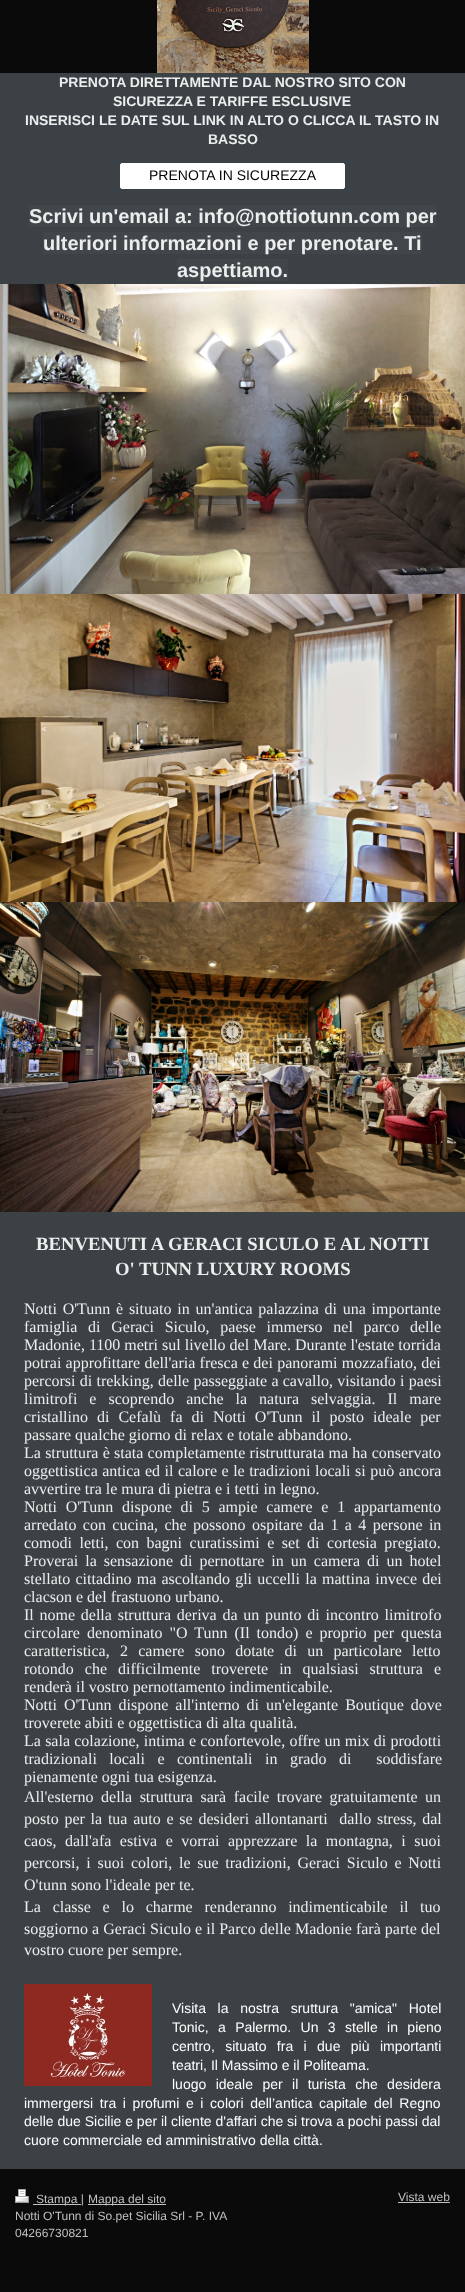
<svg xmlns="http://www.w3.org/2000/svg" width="465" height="2292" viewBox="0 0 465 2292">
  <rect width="100%" height="100%" fill="#0a0a0b"/>
  <image x="157" y="0" width="152" height="73" href="img1.png"/>
  <rect x="0" y="73" width="465" height="2096" fill="#3b4144"/>
  <text x="59" y="87" font-family="Liberation Sans" font-size="14" font-weight="bold" fill="#eceded">PRENOTA DIRETTAMENTE DAL NOSTRO SITO CON</text>
  <text x="113" y="106" font-family="Liberation Sans" font-size="14" font-weight="bold" fill="#eceded">SICUREZZA E TARIFFE ESCLUSIVE</text>
  <text x="25" y="125" font-family="Liberation Sans" font-size="14" font-weight="bold" fill="#eceded">INSERISCI LE DATE SUL LINK IN ALTO O CLICCA IL TASTO IN</text>
  <text x="208" y="144" font-family="Liberation Sans" font-size="14" font-weight="bold" fill="#eceded">BASSO</text>
  <rect x="120.5" y="163.5" width="224" height="25" rx="1.5" fill="#ffffff" stroke="#ffffff"/>
  <text x="149" y="180" font-family="Liberation Sans" font-size="14" fill="#000000">PRENOTA IN SICUREZZA</text>
  <rect x="29" y="205" width="407" height="22" fill="#404649"/>
  <text x="29" y="223" font-family="Liberation Sans" font-size="20" font-weight="bold" fill="#eceded">Scrivi un'email a: info@nottiotunn.com per</text>
  <rect x="43" y="232" width="379" height="22" fill="#404649"/>
  <text x="43" y="250" font-family="Liberation Sans" font-size="20" font-weight="bold" fill="#eceded">ulteriori informazioni e per prenotare. Ti</text>
  <rect x="177" y="259" width="111" height="22" fill="#404649"/>
  <text x="177" y="277" font-family="Liberation Sans" font-size="20" font-weight="bold" fill="#eceded">aspettiamo.</text>
  <image x="0" y="284" width="465" height="310" href="img2.png"/>
  <image x="0" y="594" width="465" height="308" href="img3.png"/>
  <image x="0" y="902" width="465" height="310" href="img4.png"/>
  <text x="36" y="1250" font-family="Liberation Serif" font-size="18.7" font-weight="bold" fill="#eceded">BENVENUTI A GERACI SICULO E AL NOTTI</text>
  <text x="115" y="1275" font-family="Liberation Serif" font-size="18.7" font-weight="bold" fill="#eceded">O' TUNN LUXURY ROOMS</text>
  <text x="24" y="1314" word-spacing="1.75" font-family="Liberation Serif" font-size="16" fill="#eceded">Notti O'Tunn è situato in un'antica palazzina di una importante</text>
  <text x="24" y="1332" word-spacing="6.75" font-family="Liberation Serif" font-size="16" fill="#eceded">famiglia di Geraci Siculo, paese immerso nel parco delle</text>
  <text x="24" y="1350" font-family="Liberation Serif" font-size="16" fill="#eceded">Madonie, 1100 metri sul livello del Mare. Durante l'estate torrida</text>
  <text x="24" y="1368" word-spacing="0.25" font-family="Liberation Serif" font-size="16" fill="#eceded">potrai approfittare dell'aria fresca e dei panorami mozzafiato, dei</text>
  <text x="24" y="1386" word-spacing="0.25" font-family="Liberation Serif" font-size="16" fill="#eceded">percorsi di trekking, delle passeggiate a cavallo, visitando i paesi</text>
  <text x="24" y="1404" word-spacing="8" font-family="Liberation Serif" font-size="16" fill="#eceded">limitrofi e scoprendo anche la natura selvaggia. Il mare</text>
  <text x="24" y="1422" word-spacing="5" font-family="Liberation Serif" font-size="16" fill="#eceded">cristallino di Cefalù fa di Notti O'Tunn il posto ideale per</text>
  <text x="24" y="1440" font-family="Liberation Serif" font-size="16" fill="#eceded">passare qualche giorno di relax e totale abbandono.</text>
  <text x="24" y="1458" word-spacing="0.25" font-family="Liberation Serif" font-size="16" fill="#eceded">La struttura è stata completamente ristrutturata ma ha conservato</text>
  <text x="24" y="1476" word-spacing="0.5" font-family="Liberation Serif" font-size="16" fill="#eceded">oggettistica antica ed il calore e le tradizioni locali si può ancora</text>
  <text x="24" y="1494" font-family="Liberation Serif" font-size="16" fill="#eceded">avvertire tra le mura di pietra e i tetti in legno.</text>
  <text x="24" y="1512" word-spacing="4.75" font-family="Liberation Serif" font-size="16" fill="#eceded">Notti O'Tunn dispone di 5 ampie camere e 1 appartamento</text>
  <text x="24" y="1530" word-spacing="2.4" font-family="Liberation Serif" font-size="16" fill="#eceded">arredato con cucina, che possono ospitare da 1 a 4 persone in</text>
  <text x="24" y="1548" word-spacing="3.5" font-family="Liberation Serif" font-size="16" fill="#eceded">comodi letti, con bagni curatissimi e set di cortesia pregiato.</text>
  <text x="24" y="1566" word-spacing="3" font-family="Liberation Serif" font-size="16" fill="#eceded">Proverai la sensazione di pernottare in un camera di un hotel</text>
  <text x="24" y="1584" word-spacing="1.25" font-family="Liberation Serif" font-size="16" fill="#eceded">stellato cittadino ma ascoltando gli uccelli la mattina invece dei</text>
  <text x="24" y="1602" font-family="Liberation Serif" font-size="16" fill="#eceded">clacson e del frastuono urbano.</text>
  <text x="24" y="1620" word-spacing="1.75" font-family="Liberation Serif" font-size="16" fill="#eceded">Il nome della struttura deriva da un punto di incontro limitrofo</text>
  <text x="24" y="1638" word-spacing="3" font-family="Liberation Serif" font-size="16" fill="#eceded">circolare denominato "O Tunn (Il tondo) e proprio per questa</text>
  <text x="24" y="1656" word-spacing="6.25" font-family="Liberation Serif" font-size="16" fill="#eceded">caratteristica, 2 camere sono dotate di un particolare letto</text>
  <text x="24" y="1674" word-spacing="7" font-family="Liberation Serif" font-size="16" fill="#eceded">rotondo che difficilmente troverete in qualsiasi struttura e</text>
  <text x="24" y="1692" font-family="Liberation Serif" font-size="16" fill="#eceded">renderà il vostro pernottamento indimenticabile.</text>
  <text x="24" y="1710" word-spacing="3" font-family="Liberation Serif" font-size="16" fill="#eceded">Notti O'Tunn dispone all'interno di un'elegante Boutique dove</text>
  <text x="24" y="1728" font-family="Liberation Serif" font-size="16" fill="#eceded">troverete abiti e oggettistica di alta qualità.</text>
  <text x="24" y="1746" word-spacing="0.25" font-family="Liberation Serif" font-size="16" fill="#eceded">La sala colazione, intima e confortevole, offre un mix di prodotti</text>
  <text x="24" y="1764" word-spacing="8.5" font-family="Liberation Serif" font-size="16" fill="#eceded" xml:space="preserve">tradizionali locali e continentali in grado di  soddisfare</text>
  <text x="24" y="1782" font-family="Liberation Serif" font-size="16" fill="#eceded">pienamente ogni tua esigenza.</text>
  <text x="24" y="1802" word-spacing="3.5" font-family="Liberation Serif" font-size="16" fill="#eceded">All'esterno della struttura sarà facile trovare gratuitamente un</text>
  <text x="24" y="1824" word-spacing="1.75" font-family="Liberation Serif" font-size="16" fill="#eceded" xml:space="preserve">posto per la tua auto e se desideri allontanarti  dallo stress, dal</text>
  <text x="24" y="1846" word-spacing="4.5" font-family="Liberation Serif" font-size="16" fill="#eceded">caos, dall'afa estiva e vorrai apprezzare la montagna, i suoi</text>
  <text x="24" y="1868" word-spacing="2.75" font-family="Liberation Serif" font-size="16" fill="#eceded">percorsi, i suoi colori, le sue tradizioni, Geraci Siculo e Notti</text>
  <text x="24" y="1890" font-family="Liberation Serif" font-size="16" fill="#eceded">O'tunn sono l'ideale per te.</text>
  <text x="24" y="1912" word-spacing="7.75" font-family="Liberation Serif" font-size="16" fill="#eceded">La classe e lo charme renderanno indimenticabile il tuo</text>
  <text x="24" y="1934" word-spacing="0.1" font-family="Liberation Serif" font-size="16" fill="#eceded">soggiorno a Geraci Siculo e il Parco delle Madonie farà parte del</text>
  <text x="24" y="1955" font-family="Liberation Serif" font-size="16" fill="#eceded">vostro cuore per sempre.</text>
  <image x="24" y="1984" width="128" height="102" href="img5.png"/>
  <text x="172" y="2013" word-spacing="7.75" font-family="Liberation Sans" font-size="14" fill="#ffffff">Visita la nostra sruttura "amica" Hotel</text>
  <text x="172" y="2032" word-spacing="5.5" font-family="Liberation Sans" font-size="14" fill="#ffffff">Tonic, a Palermo. Un 3 stelle in pieno</text>
  <text x="172" y="2051" word-spacing="6.5" font-family="Liberation Sans" font-size="14" fill="#ffffff">centro, situato fra i due più importanti</text>
  <text x="172" y="2070" font-family="Liberation Sans" font-size="14" fill="#ffffff">teatri, Il Massimo e il Politeama.</text>
  <text x="172" y="2089" word-spacing="5.5" font-family="Liberation Sans" font-size="14" fill="#ffffff">luogo ideale per il turista che desidera</text>
  <text x="24" y="2108" word-spacing="2.75" font-family="Liberation Sans" font-size="14" fill="#ffffff">immergersi tra i profumi e i colori dell’antica capitale del Regno</text>
  <text x="24" y="2126" font-family="Liberation Sans" font-size="14" fill="#ffffff">delle due Sicilie e per il cliente d'affari che si trova a pochi passi dal</text>
  <text x="24" y="2145" font-family="Liberation Sans" font-size="14" fill="#ffffff">cuore commerciale ed amministrativo della città.</text>
  <image x="15" y="2189" width="14" height="14" href="img6.png"/>
  <rect x="33" y="2204" width="48" height="1" fill="#c0c0c4"/>
  <text x="36" y="2203" font-family="Liberation Sans" font-size="12" fill="#c0c0c4">Stampa |</text>
  <rect x="88" y="2204" width="78" height="1" fill="#c0c0c4"/>
  <text x="88" y="2203" font-family="Liberation Sans" font-size="12" fill="#c0c0c4">Mappa del sito</text>
  <text x="15" y="2220" font-family="Liberation Sans" font-size="12" fill="#c0c0c4">Notti O'Tunn di So.pet Sicilia Srl - P. IVA</text>
  <text x="15" y="2237" font-family="Liberation Sans" font-size="12" fill="#c0c0c4">04266730821</text>
  <text x="398" y="2201" font-family="Liberation Sans" font-size="12" fill="#c0c0c4">Vista web</text>
  <rect x="398" y="2202" width="52" height="1" fill="#c0c0c4"/>
</svg>
